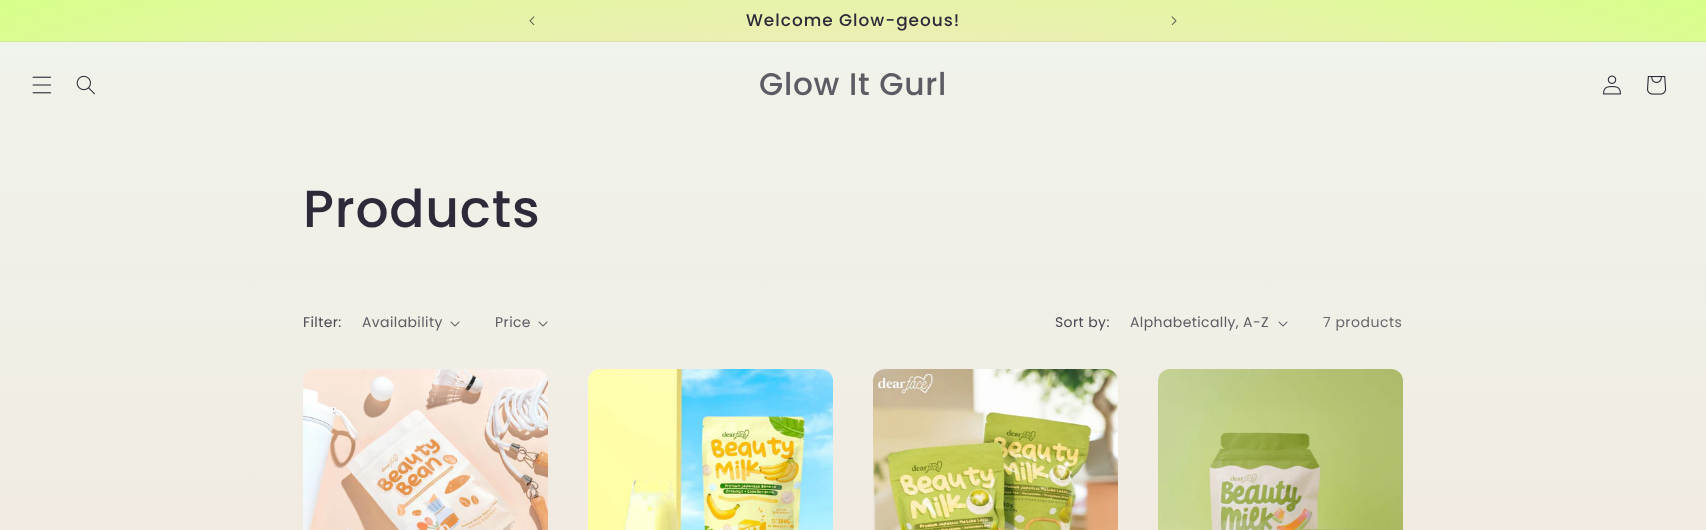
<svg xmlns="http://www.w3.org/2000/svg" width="1706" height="530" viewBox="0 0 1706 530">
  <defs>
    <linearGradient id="g1" gradientUnits="userSpaceOnUse" x1="853" y1="0" x2="853" y2="530"><stop offset="0" stop-color="#f0f4ec"/><stop offset="1" stop-color="#f1ebe2"/></linearGradient>
    <radialGradient id="g2" gradientUnits="userSpaceOnUse" cx="0" cy="0" r="1" gradientTransform="matrix(1206 0 0 375 853 265)"><stop offset="0" stop-color="#ffe5e5"/><stop offset="0.25" stop-color="#ffe0da"/><stop offset="1" stop-color="#d7ff89"/></radialGradient>
    <radialGradient id="g3" gradientUnits="userSpaceOnUse" cx="0" cy="0" r="1" gradientTransform="matrix(1206 0 0 375 853 265)"><stop offset="0" stop-color="#eed6d7"/><stop offset="0.25" stop-color="#eed1cd"/><stop offset="1" stop-color="#c9ee83"/></radialGradient>
  </defs>
  <rect width="100%" height="100%" fill="#ffffff"/>
  <rect x="0" y="42" width="1706" height="488" fill="url(#g1)"/>
  <rect x="0" y="0" width="1706" height="41" fill="url(#g2)"/>
  <rect x="0" y="41" width="1706" height="1" fill="url(#g3)"/>
  <image x="529" y="16" width="6" height="10" href="img1.png"/>
  <text x="746" y="26" font-family="Poppins" font-size="16.9" font-weight="500" letter-spacing="1" fill="#2e2a39">Welcome Glow-geous!</text>
  <image x="1171" y="16" width="6" height="10" href="img2.png"/>
  <image x="32" y="76" width="20" height="18" href="img3.png"/>
  <image x="76" y="75" width="19" height="20" href="img4.png"/>
  <text x="759" y="95" font-family="Poppins" font-size="31.25" font-weight="500" letter-spacing="0.75" fill="#5f5b64">Glow It Gurl</text>
  <image x="1603" y="75" width="18" height="20" href="img5.png"/>
  <image x="1647" y="76" width="20" height="19" href="img6.png"/>
  <text x="303" y="227" font-family="Poppins" font-size="52" font-weight="500" letter-spacing="0.75" fill="#2e2a39">Products</text>
  <text x="303" y="327" font-family="Poppins" font-size="14" letter-spacing="0.4" fill="#4b4853">Filter:</text>
  <text x="362" y="327" font-family="Poppins" font-size="14" letter-spacing="0.4" fill="#5f5b64">Availability</text>
  <image x="450" y="321" width="10" height="6" href="img7.png"/>
  <text x="495" y="327" font-family="Poppins" font-size="14" letter-spacing="0.4" fill="#5f5b64">Price</text>
  <image x="538" y="321" width="10" height="6" href="img7.png"/>
  <text x="1055" y="327" font-family="Poppins" font-size="14" letter-spacing="0.4" fill="#4b4853">Sort by:</text>
  <text x="1130" y="327" font-family="Poppins" font-size="14" letter-spacing="0.4" fill="#5f5b64">Alphabetically, A-Z</text>
  <image x="1278" y="321" width="10" height="6" href="img7.png"/>
  <text x="1323" y="327" font-family="Poppins" font-size="14" letter-spacing="0.5" fill="#69656d">7 products</text>
  <image x="303" y="369" width="245" height="161" href="img8.png"/>
  <image x="588" y="369" width="245" height="161" href="img9.png"/>
  <image x="873" y="369" width="245" height="161" href="img10.png"/>
  <image x="1158" y="369" width="245" height="161" href="img11.png"/>
</svg>
